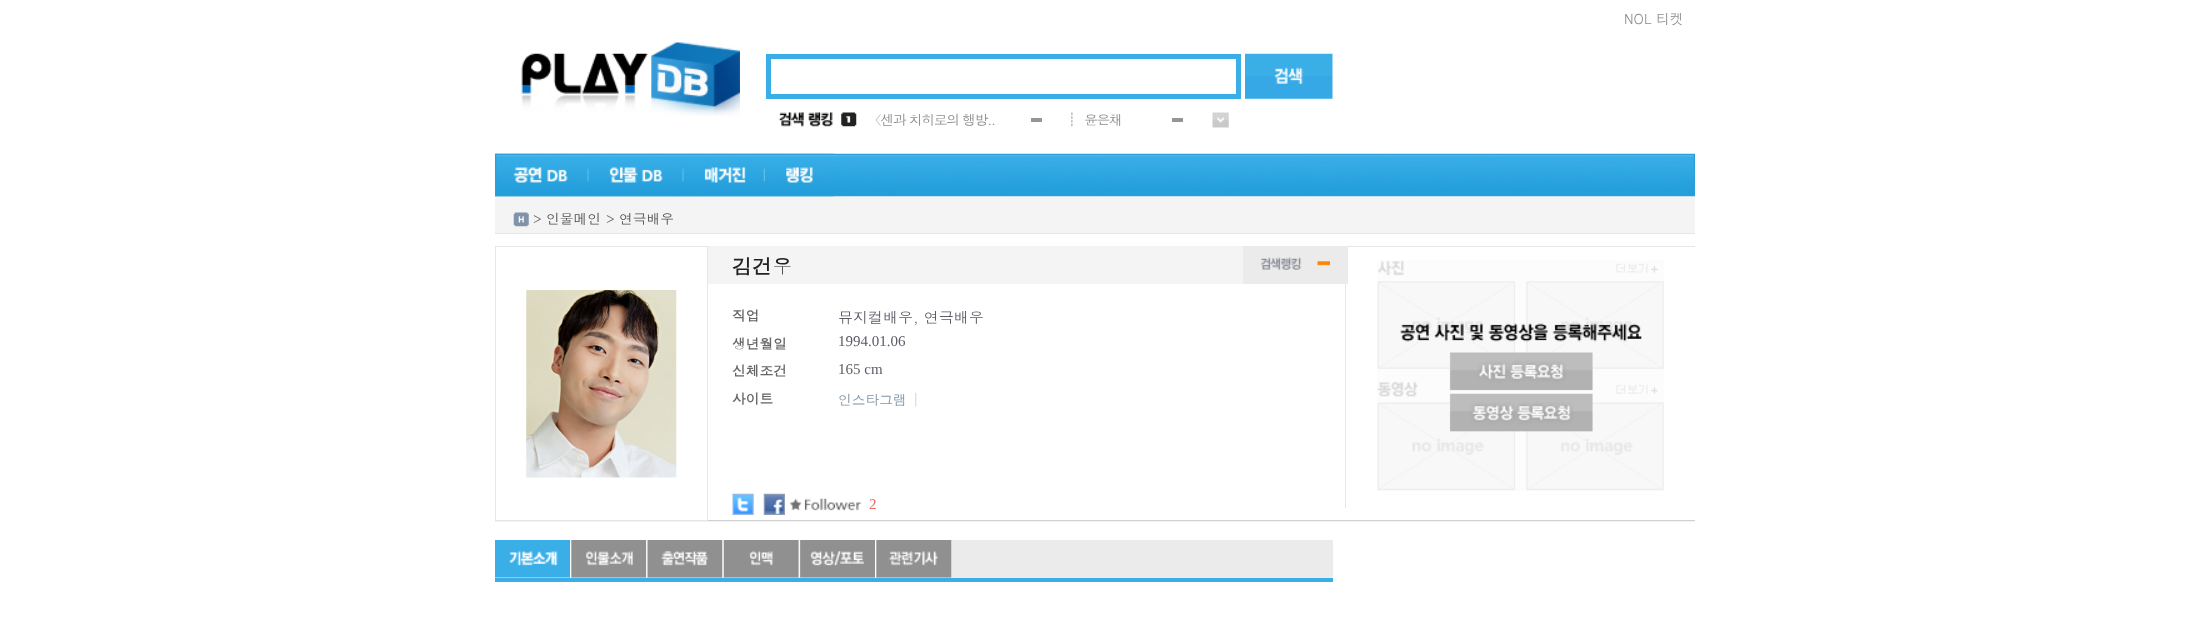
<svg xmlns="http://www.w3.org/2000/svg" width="2188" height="617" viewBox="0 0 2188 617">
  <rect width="100%" height="100%" fill="#ffffff"/>
  <text x="1624" y="24" font-family="Dotum" font-size="13.75" fill="#8b8b8b">NOL 티켓</text>
  <image x="521" y="42" width="219" height="74" href="img1.png"/>
  <rect x="768.5" y="56.5" width="470" height="40" fill="none" stroke="#39aee7" stroke-width="5"/>
  <image x="1245" y="53" width="88" height="46" href="img2.png"/>
  <image x="778" y="112" width="55" height="15" href="img3.png"/>
  <image x="841" y="112" width="16" height="15" href="img4.png"/>
  <text x="868" y="125" font-family="Dotum" font-size="13.75" letter-spacing="-1.25" fill="#8b8b8b">〈센과 치히로의 행방..</text>
  <rect x="1031" y="118" width="11" height="4" fill="#959595"/>
  <image x="1071" y="112" width="2" height="15" href="img5.png"/>
  <text x="1084" y="125" font-family="Dotum" font-size="13.75" letter-spacing="-1.25" fill="#8b8b8b">윤은채</text>
  <rect x="1172" y="118" width="11" height="4" fill="#959595"/>
  <image x="1212" y="112" width="17" height="16" href="img6.png"/>
  <rect x="495" y="196" width="1200" height="37" fill="#f4f4f4"/>
  <image x="495" y="153" width="1200" height="44" href="img7.png"/>
  <image x="495" y="153" width="94" height="44" href="img8.png"/>
  <image x="588" y="153" width="96" height="44" href="img9.png"/>
  <image x="683" y="153" width="82" height="44" href="img10.png"/>
  <image x="765" y="153" width="69" height="44" href="img11.png"/>
  <rect x="495" y="233" width="1200" height="1" fill="#e6e6e6"/>
  <image x="513" y="212" width="16" height="15" href="img12.png"/>
  <text x="533" y="224" font-family="Dotum" font-size="13.75" fill="#666666">&gt;</text>
  <text x="546" y="224" font-family="Dotum" font-size="13.75" fill="#4f4f4f">인물메인</text>
  <text x="606" y="224" font-family="Dotum" font-size="13.75" fill="#666666">&gt;</text>
  <text x="619" y="224" font-family="Dotum" font-size="13.75" fill="#4f4f4f">연극배우</text>
  <image x="495" y="520" width="1200" height="2" href="img13.png"/>
  <rect x="495.5" y="246.5" width="212" height="274" fill="none" stroke="#e6e6e6"/>
  <image x="526" y="290" width="151" height="188" href="img14.png"/>
  <rect x="708" y="246" width="535" height="38" fill="#f4f4f4"/>
  <text x="732" y="274" font-family="Dotum" font-size="20" font-weight="bold" fill="#222222">김건우</text>
  <rect x="1345" y="246" width="350" height="1" fill="#e6e6e6"/>
  <rect x="1243" y="246" width="105" height="38" fill="#ebebeb"/>
  <image x="1261" y="257" width="41" height="13" href="img15.png"/>
  <image x="1317" y="261" width="13" height="5" href="img16.png"/>
  <text x="732" y="321" font-family="Dotum" font-size="13.75" font-weight="bold" fill="#666666">직업</text>
  <text x="838" y="323" font-family="Dotum" font-size="15" fill="#595c65">뮤지컬배우, 연극배우</text>
  <text x="732" y="349" font-family="Dotum" font-size="13.75" font-weight="bold" fill="#666666">생년월일</text>
  <text x="838" y="346" font-family="Liberation Serif" font-size="15" fill="#595c65">1994.01.06</text>
  <text x="732" y="376" font-family="Dotum" font-size="13.75" font-weight="bold" fill="#666666">신체조건</text>
  <text x="838" y="374" font-family="Liberation Serif" font-size="15" fill="#595c65">165 cm</text>
  <text x="732" y="404" font-family="Dotum" font-size="13.75" font-weight="bold" fill="#666666">사이트</text>
  <text x="838" y="405" font-family="Dotum" font-size="13.75" fill="#7c95ab">인스타그램</text>
  <text x="912" y="405" font-family="Dotum" font-size="15" fill="#d3d3d3">|</text>
  <image x="732" y="493" width="22" height="22" href="img17.png"/>
  <image x="763" y="493" width="22" height="22" href="img18.png"/>
  <image x="790" y="498" width="72" height="13" href="img19.png"/>
  <text x="869" y="509" font-family="Liberation Serif" font-size="15" fill="#f06666">2</text>
  <rect x="1345" y="284" width="1" height="224" fill="#e6e6e6"/>
  <image x="1377" y="260" width="287" height="231" href="img20.png"/>
  <rect x="495" y="540" width="838" height="38" fill="#ebebeb"/>
  <rect x="495" y="578" width="838" height="4" fill="#39aee7"/>
  <image x="495" y="540" width="75" height="38" href="img21.png"/>
  <image x="570" y="540" width="77" height="38" href="img22.png"/>
  <image x="646" y="540" width="77" height="38" href="img23.png"/>
  <image x="722" y="540" width="77" height="38" href="img24.png"/>
  <image x="798" y="540" width="77" height="38" href="img25.png"/>
  <image x="875" y="540" width="77" height="38" href="img26.png"/>
</svg>
